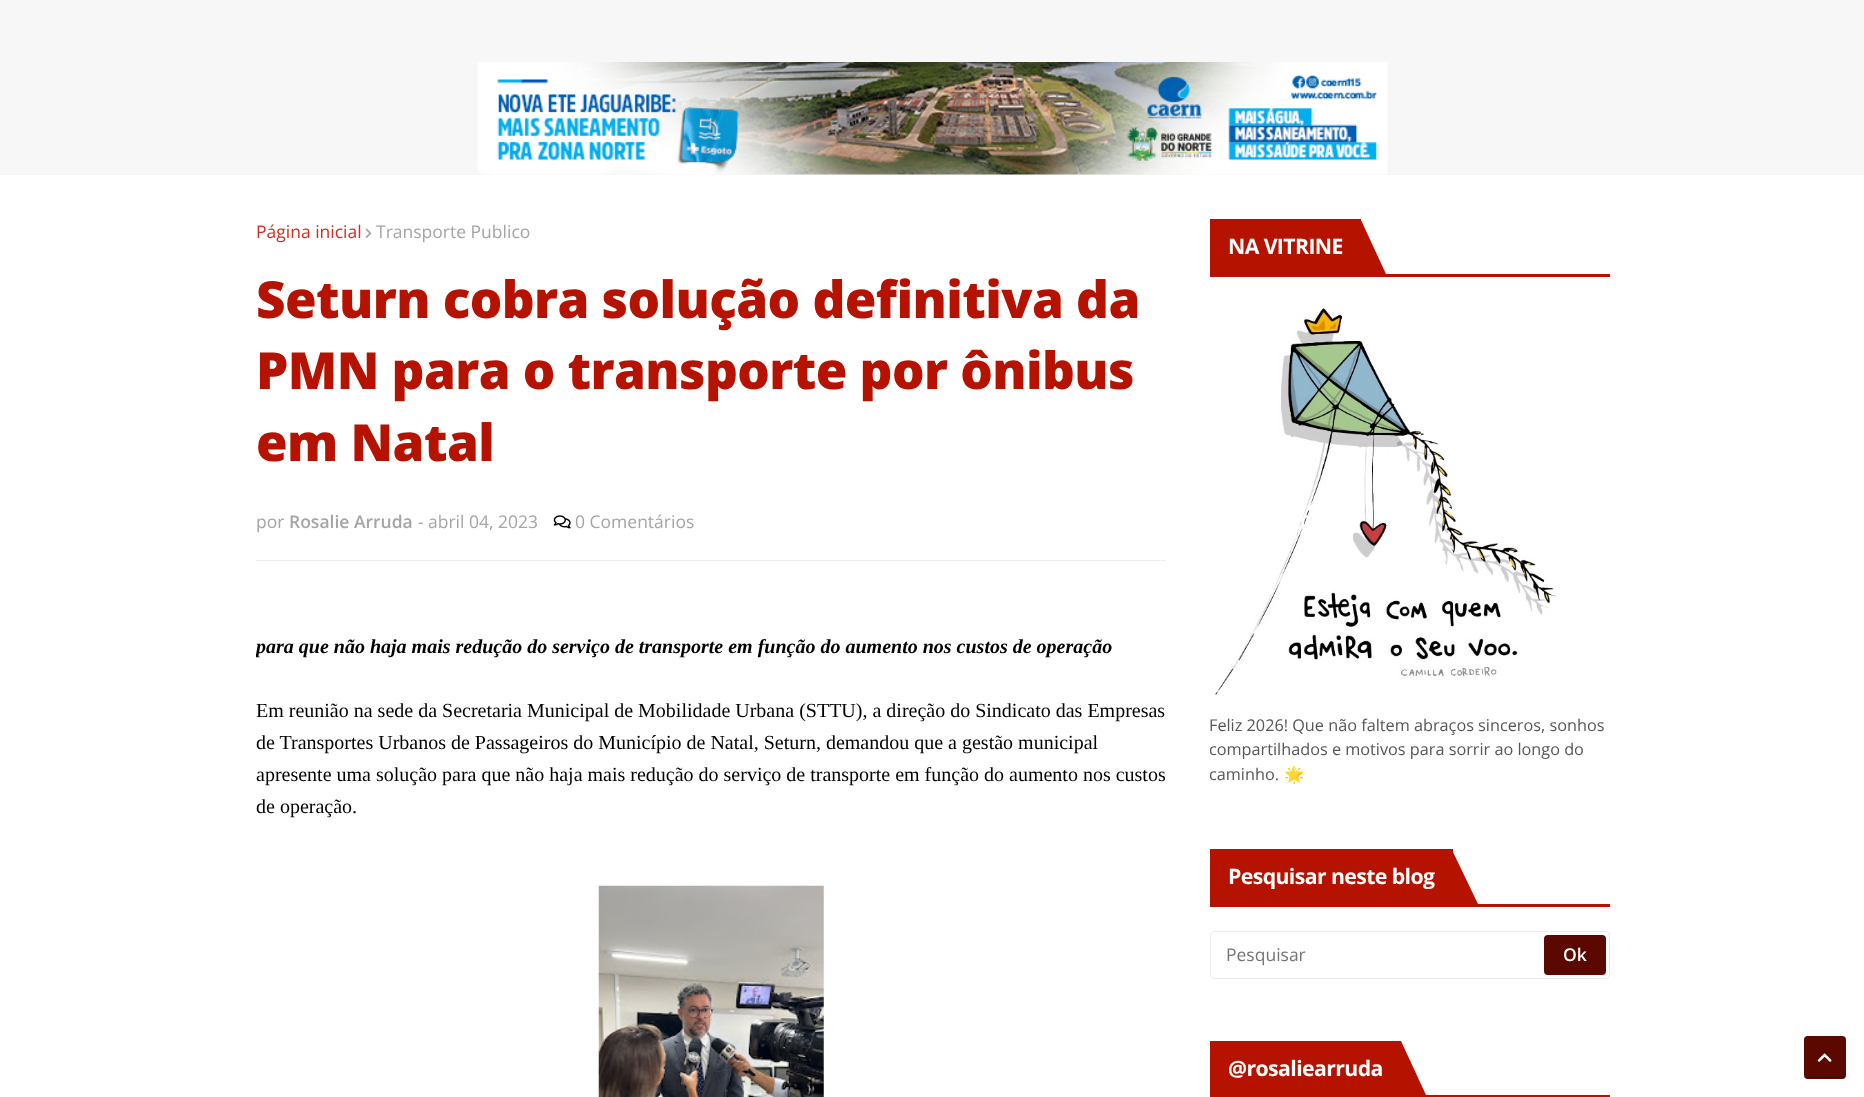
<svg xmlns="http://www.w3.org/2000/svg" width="1864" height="1097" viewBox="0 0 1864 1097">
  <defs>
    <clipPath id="clip1"><rect x="256" y="561" width="910" height="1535"/></clipPath>
  </defs>
  <rect width="100%" height="100%" fill="#f7f7f7"/>
  <image x="477" y="62" width="911" height="113" href="img1.png"/>
  <rect x="0" y="175" width="1864" height="922" fill="#ffffff"/>
  <rect x="256" y="560" width="910" height="1" fill="#ebebeb"/>
  <text x="256" y="238" font-family="Open Sans" font-size="17.5" fill="#d52c1f">Página inicial</text>
  <image x="365" y="228" width="7" height="10" href="img2.png"/>
  <text x="376" y="238" font-family="Open Sans" font-size="17.5" fill="#a5a5a5">Transporte Publico</text>
  <text x="256" y="318" font-family="Open Sans" font-size="51.25" font-weight="800" letter-spacing="-0.6" fill="#b51200">Seturn cobra solução definitiva da</text>
  <text x="256" y="389" font-family="Open Sans" font-size="51.25" font-weight="800" letter-spacing="-0.6" fill="#b51200">PMN para o transporte por ônibus</text>
  <text x="256" y="461" font-family="Open Sans" font-size="51.25" font-weight="800" letter-spacing="-0.6" fill="#b51200">em Natal</text>
  <text x="256" y="528" font-family="Open Sans" font-size="17.5" fill="#a5a5a5">por</text>
  <text x="289" y="528" font-family="Open Sans" font-size="17.5" font-weight="600" fill="#a5a5a5">Rosalie Arruda</text>
  <text x="418" y="528" font-family="Open Sans" font-size="17.5" fill="#a5a5a5">-</text>
  <text x="428" y="528" font-family="Open Sans" font-size="17.5" fill="#a5a5a5">abril 04, 2023</text>
  <image x="553" y="515" width="18" height="14" href="img3.png"/>
  <text x="575" y="528" font-family="Open Sans" font-size="17.5" fill="#a5a5a5">0 Comentários</text>
  <g clip-path="url(#clip1)">
    <text x="256" y="653" font-family="Liberation Serif" font-size="20" font-weight="bold" font-style="italic" fill="#000000">para que não haja mais redução do serviço de transporte em função do aumento nos custos de operação</text>
  </g>
  <text x="256" y="717" font-family="Liberation Serif" font-size="20" fill="#000000">Em reunião na sede da Secretaria Municipal de Mobilidade Urbana (STTU), a direção do Sindicato das Empresas</text>
  <text x="256" y="749" font-family="Liberation Serif" font-size="20" fill="#000000">de Transportes Urbanos de Passageiros do Município de Natal, Seturn, demandou que a gestão municipal</text>
  <text x="256" y="781" font-family="Liberation Serif" font-size="20" fill="#000000">apresente uma solução para que não haja mais redução do serviço de transporte em função do aumento nos custos</text>
  <text x="256" y="813" font-family="Liberation Serif" font-size="20" fill="#000000">de operação.</text>
  <image x="598" y="885" width="226" height="212" href="img4.png"/>
  <rect x="1210" y="274" width="400" height="3" fill="#b51200"/>
  <rect x="1210" y="219" width="151" height="55" fill="#b51200"/>
  <text x="1228" y="254" font-family="Open Sans" font-size="21.25" font-weight="bold" letter-spacing="-0.6" fill="#ffffff">NA VITRINE</text>
  <path d="M1361 274V220L1386 274Z" fill="#b51200"/>
  <image x="1215" y="308" width="341" height="387" href="img5.png"/>
  <text x="1209" y="731" font-family="Open Sans" font-size="16.25" fill="#565656">Feliz 2026! Que não faltem abraços sinceros, sonhos</text>
  <text x="1209" y="755" font-family="Open Sans" font-size="16.25" fill="#565656">compartilhados e motivos para sorrir ao longo do</text>
  <text x="1209" y="780" font-family="Open Sans" font-size="16.25" fill="#565656">caminho.</text>
  <text x="1284" y="780" font-family="Noto Color Emoji" font-size="16.25" fill="#565656">🌟</text>
  <rect x="1210" y="904" width="400" height="3" fill="#b51200"/>
  <rect x="1210" y="849" width="243" height="55" fill="#b51200"/>
  <text x="1228" y="884" font-family="Open Sans" font-size="21.25" font-weight="bold" letter-spacing="-0.6" fill="#ffffff">Pesquisar neste blog</text>
  <path d="M1452 904V850L1478 904Z" fill="#b51200"/>
  <rect x="1210.5" y="931.5" width="399" height="47" rx="3.5" fill="none" stroke="#ebebeb"/>
  <text x="1226" y="961" font-family="Open Sans" font-size="17.5" fill="#757575">Pesquisar</text>
  <rect x="1544" y="935" width="62" height="40" rx="4" fill="#5b0900"/>
  <text x="1563" y="961" font-family="Open Sans" font-size="17.5" font-weight="600" fill="#ffffff">Ok</text>
  <rect x="1210" y="1095" width="400" height="2" fill="#b51200"/>
  <rect x="1210" y="1041" width="191" height="54" fill="#b51200"/>
  <text x="1228" y="1076" font-family="Open Sans" font-size="21.25" font-weight="bold" letter-spacing="-0.6" fill="#ffffff">@rosaliearruda</text>
  <path d="M1401 1095V1041L1426 1095Z" fill="#b51200"/>
  <rect x="1804" y="1036" width="42" height="43" rx="4" fill="#5b0900"/>
  <rect x="1806" y="1076" width="39" height="3" fill="#000000" fill-opacity="0.1"/>
  <image x="1817" y="1053" width="15" height="9" href="img6.png"/>
</svg>
